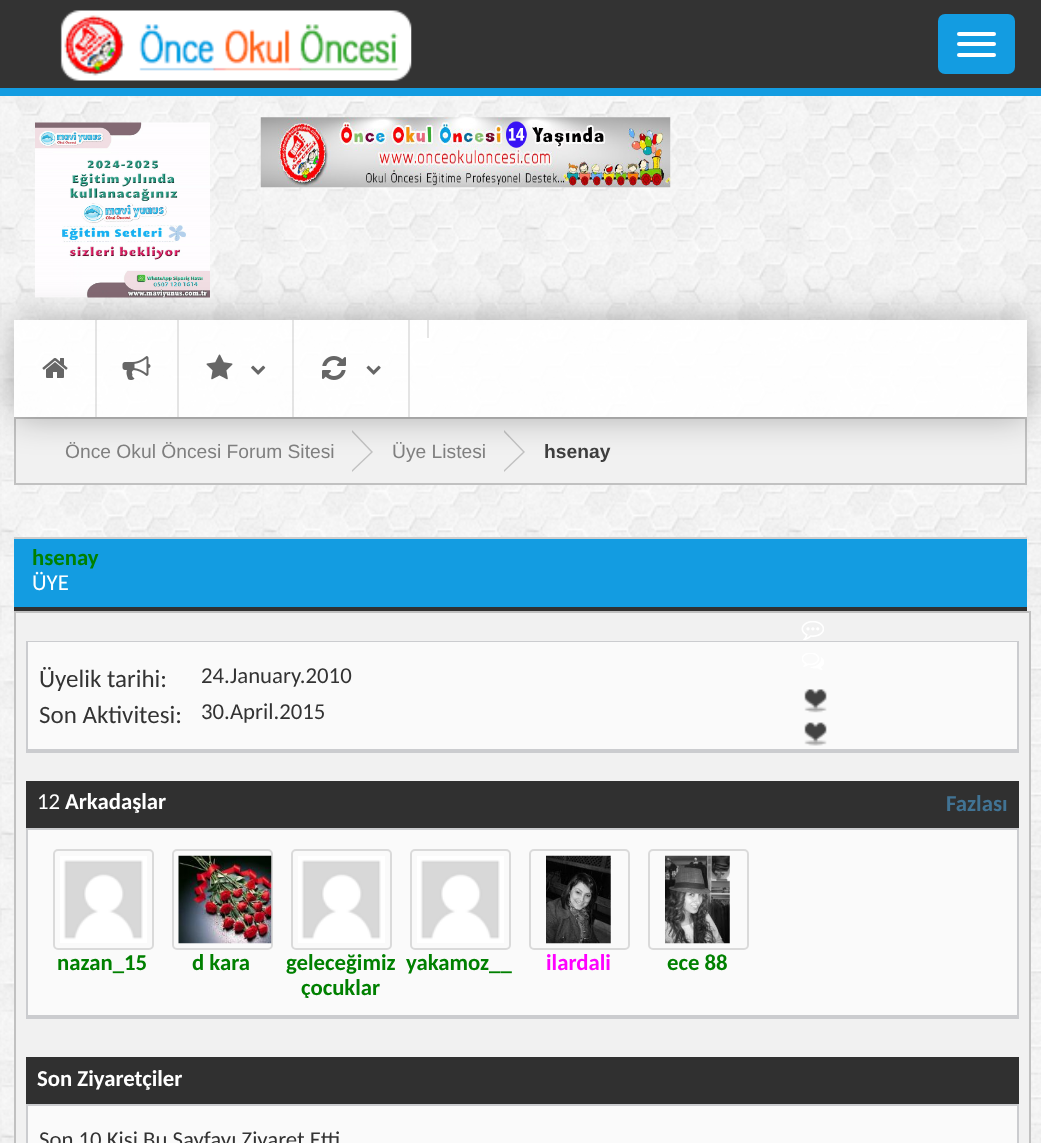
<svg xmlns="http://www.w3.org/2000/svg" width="1041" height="1143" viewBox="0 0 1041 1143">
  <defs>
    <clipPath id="clip1"><path d="M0 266H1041V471H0ZM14 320H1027V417H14Z" clip-rule="evenodd"/></clipPath>
    <filter id="blur1" x="-50%" y="-200%" width="200%" height="500%"><feGaussianBlur stdDeviation="17.5"/></filter>
    <clipPath id="clip2"><rect x="285" y="849" width="111" height="149"/></clipPath>
  </defs>
  <rect width="100%" height="100%" fill="#ffffff"/>
  <image x="0" y="96" width="1041" height="1047" href="img1.png"/>
  <rect x="0" y="0" width="1041" height="88" fill="#333333"/>
  <rect x="0" y="88" width="1041" height="8" fill="#139ce1"/>
  <image x="60" y="10" width="352" height="71" href="img2.png"/>
  <rect x="938" y="14" width="77" height="60" rx="7" fill="#139ce1"/>
  <rect x="957" y="32" width="39" height="4" rx="2" fill="#ffffff"/>
  <rect x="957" y="42" width="39" height="4" rx="2" fill="#ffffff"/>
  <rect x="957" y="53" width="39" height="4" rx="2" fill="#ffffff"/>
  <image x="35" y="122" width="175" height="176" href="img3.png"/>
  <image x="260" y="117" width="411" height="71" href="img4.png"/>
  <rect x="15" y="418" width="1011" height="66" fill="#f1f1f1" stroke="#c1c1c1" stroke-width="2"/>
  <path d="M352 472V430L373 452Z" fill="#c1c1c1"/>
  <path d="M350 472V430L371 452Z" fill="#f1f1f1"/>
  <path d="M504 472V430L525 452Z" fill="#c1c1c1"/>
  <path d="M502 472V430L523 452Z" fill="#f1f1f1"/>
  <g clip-path="url(#clip1)">
    <rect x="14" y="320" width="1013" height="97" fill="#000000" fill-opacity="0.3" filter="url(#blur1)"/>
  </g>
  <rect x="14" y="320" width="1013" height="97" fill="#ffffff" fill-opacity="0.9"/>
  <rect x="95" y="320" width="2" height="97" fill="#000000" fill-opacity="0.1"/>
  <image x="42" y="358" width="26" height="20" href="img5.png"/>
  <rect x="177" y="320" width="2" height="97" fill="#000000" fill-opacity="0.1"/>
  <image x="122" y="356" width="29" height="24" href="img6.png"/>
  <rect x="292" y="320" width="2" height="97" fill="#000000" fill-opacity="0.1"/>
  <image x="206" y="354" width="27" height="26" href="img7.png"/>
  <image x="251" y="365" width="15" height="10" href="img8.png"/>
  <rect x="408" y="320" width="2" height="97" fill="#e4e4e4"/>
  <image x="322" y="356" width="24" height="24" href="img9.png"/>
  <image x="366" y="365" width="15" height="10" href="img10.png"/>
  <rect x="427" y="320" width="2" height="18" fill="#e5e5e5"/>
  <text x="65" y="458" font-family="Liberation Sans" font-size="19.25" fill="#7f7f7f">Önce Okul Öncesi Forum Sitesi</text>
  <text x="392" y="458" font-family="Liberation Sans" font-size="19.25" fill="#7f7f7f">Üye Listesi</text>
  <text x="544" y="458" font-family="Liberation Sans" font-size="19.25" font-weight="bold" fill="#3e3e3e">hsenay</text>
  <rect x="14" y="539" width="1013" height="68" fill="#139ce1"/>
  <rect x="14" y="537" width="1013" height="2" fill="#cecece"/>
  <text x="32" y="565" font-family="Carlito" font-size="22.75" font-weight="bold" fill="#008000">hsenay</text>
  <text x="32" y="590" font-family="Carlito" font-size="22.75" fill="#ffffff">ÜYE</text>
  <rect x="14" y="607" width="1013" height="4" fill="#303030"/>
  <rect x="15" y="612" width="1015" height="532" fill="#f1f1f1" stroke="#c1c1c1" stroke-width="2"/>
  <image x="801" y="621" width="23" height="19" href="img11.png"/>
  <rect x="28" y="642" width="989" height="107" fill="#fafafa"/>
  <image x="802" y="653" width="22" height="17" href="img12.png"/>
  <image x="804" y="689" width="23" height="24" href="img13.png"/>
  <image x="804" y="722" width="23" height="24" href="img14.png"/>
  <rect x="26" y="641" width="993" height="1" fill="#cbcccf"/>
  <rect x="1017" y="641" width="2" height="112" fill="#cbcccf"/>
  <rect x="26" y="749" width="993" height="4" fill="#cbcccf"/>
  <rect x="26" y="641" width="2" height="112" fill="#cbcccf"/>
  <text x="39" y="687" font-family="Carlito" font-size="25" fill="#333333">Üyelik tarihi:</text>
  <text x="201" y="683" font-family="Carlito" font-size="22.75" fill="#333333">24.January.2010</text>
  <text x="39" y="723" font-family="Carlito" font-size="25" fill="#333333">Son Aktivitesi:</text>
  <text x="201" y="719" font-family="Carlito" font-size="22.75" fill="#333333">30.April.2015</text>
  <rect x="26" y="781" width="993" height="47" fill="#303030"/>
  <text x="37" y="809" font-family="Carlito" font-size="22.75" fill="#ffffff">12</text>
  <text x="65" y="809" font-family="Carlito" font-size="22.75" font-weight="bold" fill="#ffffff">Arkadaşlar</text>
  <text x="946" y="811" font-family="Carlito" font-size="22.75" font-weight="bold" fill="#417394">Fazlası</text>
  <rect x="26" y="828" width="993" height="2" fill="#cbcccf"/>
  <rect x="1017" y="828" width="2" height="191" fill="#cbcccf"/>
  <rect x="26" y="1015" width="993" height="4" fill="#cbcccf"/>
  <rect x="26" y="828" width="2" height="191" fill="#cbcccf"/>
  <rect x="28" y="830" width="989" height="185" fill="#fafafa"/>
  <rect x="54" y="850" width="99" height="99" rx="4" fill="none" stroke="#dadada" stroke-width="2"/>
  <image x="60" y="856" width="87" height="87" href="img15.png"/>
  <text x="57" y="970" font-family="Carlito" font-size="22.75" font-weight="bold" fill="#008000">nazan_15</text>
  <rect x="173" y="850" width="99" height="99" rx="4" fill="none" stroke="#dadada" stroke-width="2"/>
  <image x="178" y="855" width="94" height="89" href="img16.png"/>
  <text x="192" y="970" font-family="Carlito" font-size="22.75" font-weight="bold" fill="#008000">d kara</text>
  <rect x="292" y="850" width="99" height="99" rx="4" fill="none" stroke="#dadada" stroke-width="2"/>
  <image x="298" y="856" width="87" height="87" href="img15.png"/>
  <text x="286" y="970" font-family="Carlito" font-size="22.75" font-weight="bold" fill="#008000">geleceğimiz</text>
  <g clip-path="url(#clip2)">
    <text x="301" y="995" font-family="Carlito" font-size="22.75" font-weight="bold" fill="#008000">çocuklar</text>
  </g>
  <rect x="411" y="850" width="99" height="99" rx="4" fill="none" stroke="#dadada" stroke-width="2"/>
  <image x="417" y="856" width="87" height="87" href="img15.png"/>
  <text x="406" y="970" font-family="Carlito" font-size="22.75" font-weight="bold" fill="#008000">yakamoz__</text>
  <rect x="530" y="850" width="99" height="99" rx="4" fill="none" stroke="#dadada" stroke-width="2"/>
  <image x="546" y="855" width="65" height="89" href="img17.png"/>
  <text x="546" y="970" font-family="Carlito" font-size="22.75" font-weight="bold" fill="#ff00ff">ilardali</text>
  <rect x="649" y="850" width="99" height="99" rx="4" fill="none" stroke="#dadada" stroke-width="2"/>
  <image x="665" y="855" width="65" height="89" href="img18.png"/>
  <text x="667" y="970" font-family="Carlito" font-size="22.75" font-weight="bold" fill="#008000">ece 88</text>
  <rect x="26" y="1057" width="993" height="47" fill="#303030"/>
  <text x="37" y="1086" font-family="Carlito" font-size="22.75" font-weight="bold" fill="#ffffff">Son Ziyaretçiler</text>
  <rect x="26" y="1104" width="993" height="2" fill="#cbcccf"/>
  <rect x="1017" y="1104" width="2" height="39" fill="#cbcccf"/>
  <rect x="26" y="1104" width="2" height="39" fill="#cbcccf"/>
  <rect x="28" y="1106" width="989" height="37" fill="#fafafa"/>
  <text x="39" y="1147" font-family="Carlito" font-size="22.75" fill="#333333">Son 10 Kişi Bu Sayfayı Ziyaret Etti</text>
</svg>
